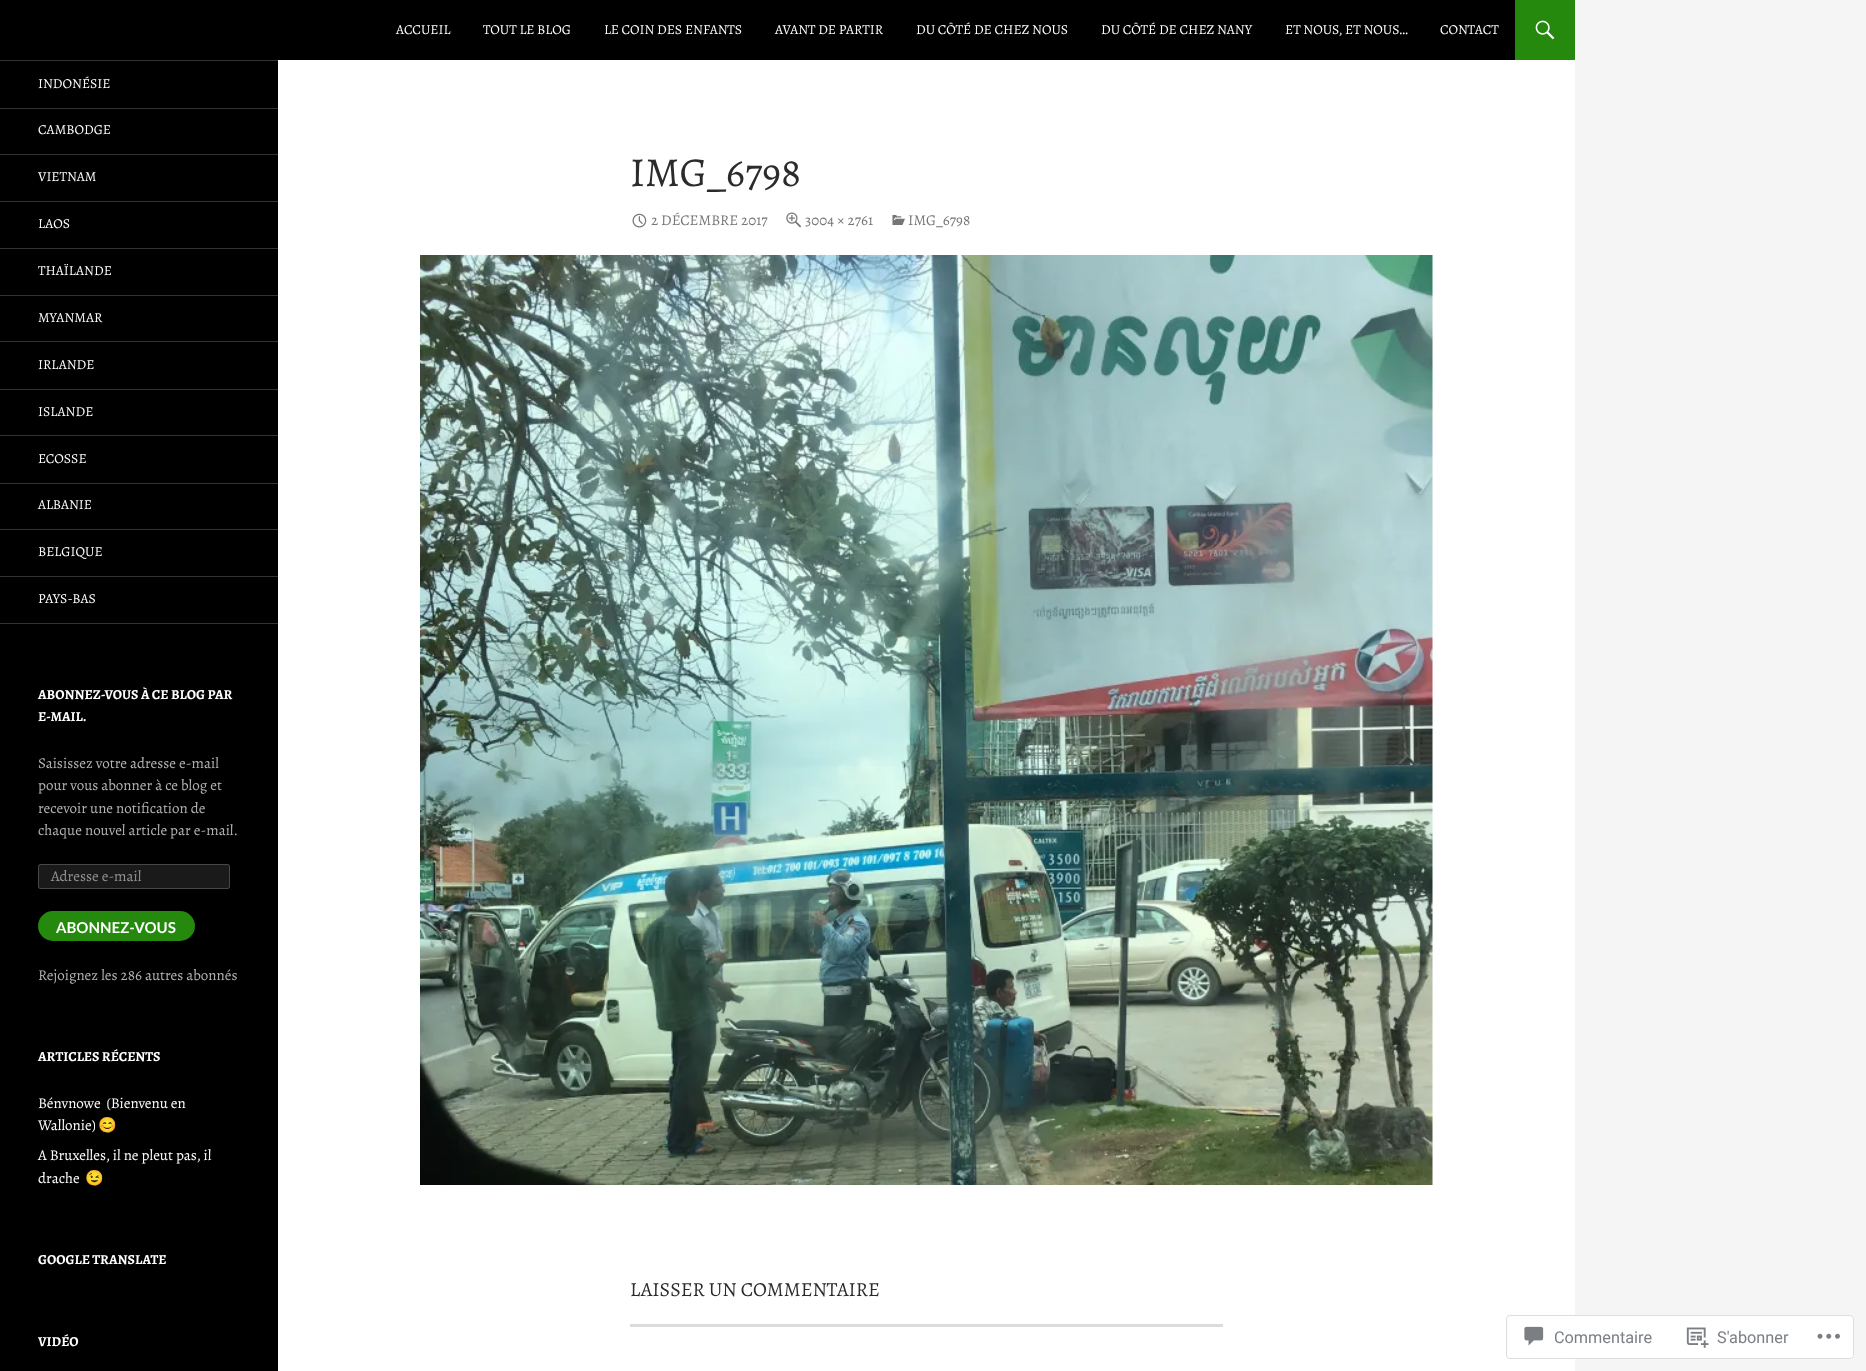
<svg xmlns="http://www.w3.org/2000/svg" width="1866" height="1371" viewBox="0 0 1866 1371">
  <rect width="100%" height="100%" fill="#f5f5f5"/>
  <rect x="278" y="60" width="1297" height="1311" fill="#ffffff"/>
  <rect x="0" y="0" width="1515" height="60" fill="#000000"/>
  <text x="396" y="34" font-family="Alegreya" font-size="13.75" fill="#ffffff">ACCUEIL</text>
  <text x="483" y="34" font-family="Alegreya" font-size="13.75" fill="#ffffff">TOUT LE BLOG</text>
  <text x="604" y="34" font-family="Alegreya" font-size="13.75" fill="#ffffff">LE COIN DES ENFANTS</text>
  <text x="775" y="34" font-family="Alegreya" font-size="13.75" fill="#ffffff">AVANT DE PARTIR</text>
  <text x="916" y="34" font-family="Alegreya" font-size="13.75" fill="#ffffff">DU CÔTÉ DE CHEZ NOUS</text>
  <text x="1101" y="34" font-family="Alegreya" font-size="13.75" fill="#ffffff">DU CÔTÉ DE CHEZ NANY</text>
  <text x="1285" y="34" font-family="Alegreya" font-size="13.75" fill="#ffffff">ET NOUS, ET NOUS…</text>
  <text x="1440" y="34" font-family="Alegreya" font-size="13.75" fill="#ffffff">CONTACT</text>
  <rect x="1515" y="0" width="60" height="60" fill="#24890d"/>
  <image x="1535" y="20" width="20" height="20" href="img1.png"/>
  <rect x="0" y="61" width="278" height="1310" fill="#000000"/>
  <rect x="0" y="623" width="278" height="1" fill="#333333"/>
  <rect x="0" y="60" width="278" height="1" fill="#333333"/>
  <text x="38" y="88" font-family="Alegreya" font-size="13.75" fill="#ffffff">INDONÉSIE</text>
  <rect x="0" y="108" width="278" height="1" fill="#333333"/>
  <text x="38" y="134" font-family="Alegreya" font-size="13.75" fill="#ffffff">CAMBODGE</text>
  <rect x="0" y="154" width="278" height="1" fill="#333333"/>
  <text x="38" y="181" font-family="Alegreya" font-size="13.75" fill="#ffffff">VIETNAM</text>
  <rect x="0" y="201" width="278" height="1" fill="#333333"/>
  <text x="38" y="228" font-family="Alegreya" font-size="13.75" fill="#ffffff">LAOS</text>
  <rect x="0" y="248" width="278" height="1" fill="#333333"/>
  <text x="38" y="275" font-family="Alegreya" font-size="13.75" fill="#ffffff">THAÏLANDE</text>
  <rect x="0" y="295" width="278" height="1" fill="#333333"/>
  <text x="38" y="322" font-family="Alegreya" font-size="13.75" fill="#ffffff">MYANMAR</text>
  <rect x="0" y="341" width="278" height="1" fill="#333333"/>
  <text x="38" y="369" font-family="Alegreya" font-size="13.75" fill="#ffffff">IRLANDE</text>
  <rect x="0" y="389" width="278" height="1" fill="#333333"/>
  <text x="38" y="416" font-family="Alegreya" font-size="13.75" fill="#ffffff">ISLANDE</text>
  <rect x="0" y="435" width="278" height="1" fill="#333333"/>
  <text x="38" y="463" font-family="Alegreya" font-size="13.75" fill="#ffffff">ECOSSE</text>
  <rect x="0" y="483" width="278" height="1" fill="#333333"/>
  <text x="38" y="509" font-family="Alegreya" font-size="13.75" fill="#ffffff">ALBANIE</text>
  <rect x="0" y="529" width="278" height="1" fill="#333333"/>
  <text x="38" y="556" font-family="Alegreya" font-size="13.75" fill="#ffffff">BELGIQUE</text>
  <rect x="0" y="576" width="278" height="1" fill="#333333"/>
  <text x="38" y="603" font-family="Alegreya" font-size="13.75" fill="#ffffff">PAYS-BAS</text>
  <text x="38" y="699" font-family="Alegreya" font-size="13.75" font-weight="bold" fill="#ffffff">ABONNEZ-VOUS À CE BLOG PAR</text>
  <text x="38" y="721" font-family="Alegreya" font-size="13.75" font-weight="bold" fill="#ffffff">E-MAIL.</text>
  <text x="38" y="768" font-family="Alegreya" font-size="15" fill="#b3b3b3">Saisissez votre adresse e-mail</text>
  <text x="38" y="790" font-family="Alegreya" font-size="15" fill="#b3b3b3">pour vous abonner à ce blog et</text>
  <text x="38" y="813" font-family="Alegreya" font-size="15" fill="#b3b3b3">recevoir une notification de</text>
  <text x="38" y="835" font-family="Alegreya" font-size="15" fill="#b3b3b3">chaque nouvel article par e-mail.</text>
  <rect x="38" y="864" width="192" height="25" rx="2.5" fill="#1a1a1a"/>
  <rect x="38.5" y="864.5" width="191" height="24" rx="2" fill="none" stroke="#ffffff" stroke-opacity="0.2"/>
  <text x="51" y="881" font-family="Alegreya" font-size="15" fill="#939393">Adresse e-mail</text>
  <rect x="38" y="911" width="157" height="30" rx="15" fill="#24890d"/>
  <text x="56" y="933" font-family="Lato" font-size="15" font-weight="bold" fill="#ffffff">ABONNEZ-VOUS</text>
  <text x="38" y="980" font-family="Alegreya" font-size="15" fill="#b3b3b3">Rejoignez les 286 autres abonnés</text>
  <text x="38" y="1061" font-family="Alegreya" font-size="13.75" font-weight="bold" fill="#ffffff">ARTICLES RÉCENTS</text>
  <text x="38" y="1108" font-family="Alegreya" font-size="15" fill="#ffffff" xml:space="preserve">Bénvnowe  (Bienvenu en</text>
  <text x="38" y="1130" font-family="Alegreya" font-size="15" fill="#ffffff">Wallonie)</text>
  <text x="98" y="1130" font-family="Noto Color Emoji" font-size="15" fill="#ffffff">😊</text>
  <text x="38" y="1160" font-family="Alegreya" font-size="15" fill="#ffffff">A Bruxelles, il ne pleut pas, il</text>
  <text x="38" y="1183" font-family="Alegreya" font-size="15" fill="#ffffff">drache</text>
  <text x="85" y="1183" font-family="Noto Color Emoji" font-size="15" fill="#ffffff">😉</text>
  <text x="38" y="1264" font-family="Alegreya" font-size="13.75" font-weight="bold" fill="#ffffff">GOOGLE TRANSLATE</text>
  <text x="38" y="1346" font-family="Alegreya" font-size="13.75" font-weight="bold" fill="#ffffff">VIDÉO</text>
  <text x="630" y="186" font-family="Alegreya" font-size="41.25" fill="#2b2b2b">IMG_6798</text>
  <image x="632" y="213" width="15" height="15" href="img2.png"/>
  <text x="651" y="225" font-family="Alegreya" font-size="15" fill="#767676">2 DÉCEMBRE 2017</text>
  <image x="786" y="212" width="16" height="16" href="img3.png"/>
  <text x="805" y="225" font-family="Alegreya" font-size="15" fill="#767676">3004 × 2761</text>
  <image x="892" y="215" width="13" height="10" href="img4.png"/>
  <text x="908" y="225" font-family="Alegreya" font-size="15" fill="#767676">IMG_6798</text>
  <image x="420" y="255" width="1013" height="930" href="img5.png"/>
  <text x="630" y="1296" font-family="Alegreya" font-size="20" fill="#2b2b2b">LAISSER UN COMMENTAIRE</text>
  <rect x="630" y="1324" width="593" height="3" fill="#dcdcde"/>
  <rect x="1506" y="1315" width="348" height="44" rx="4" fill="#ffffff" fill-opacity="0.98"/>
  <rect x="1506.5" y="1315.5" width="347" height="43" rx="3.5" fill="none" stroke="#dcdcde" stroke-opacity="0.98"/>
  <image x="1524" y="1326" width="20" height="20" href="img6.png"/>
  <text x="1554" y="1343" font-family="Roboto" font-size="16.25" fill="#7b7f84">Commentaire</text>
  <image x="1686" y="1327" width="23" height="21" href="img7.png"/>
  <text x="1717" y="1343" font-family="Roboto" font-size="16.25" fill="#7b7f84">S'abonner</text>
  <image x="1817" y="1333" width="23" height="6" href="img8.png"/>
</svg>
